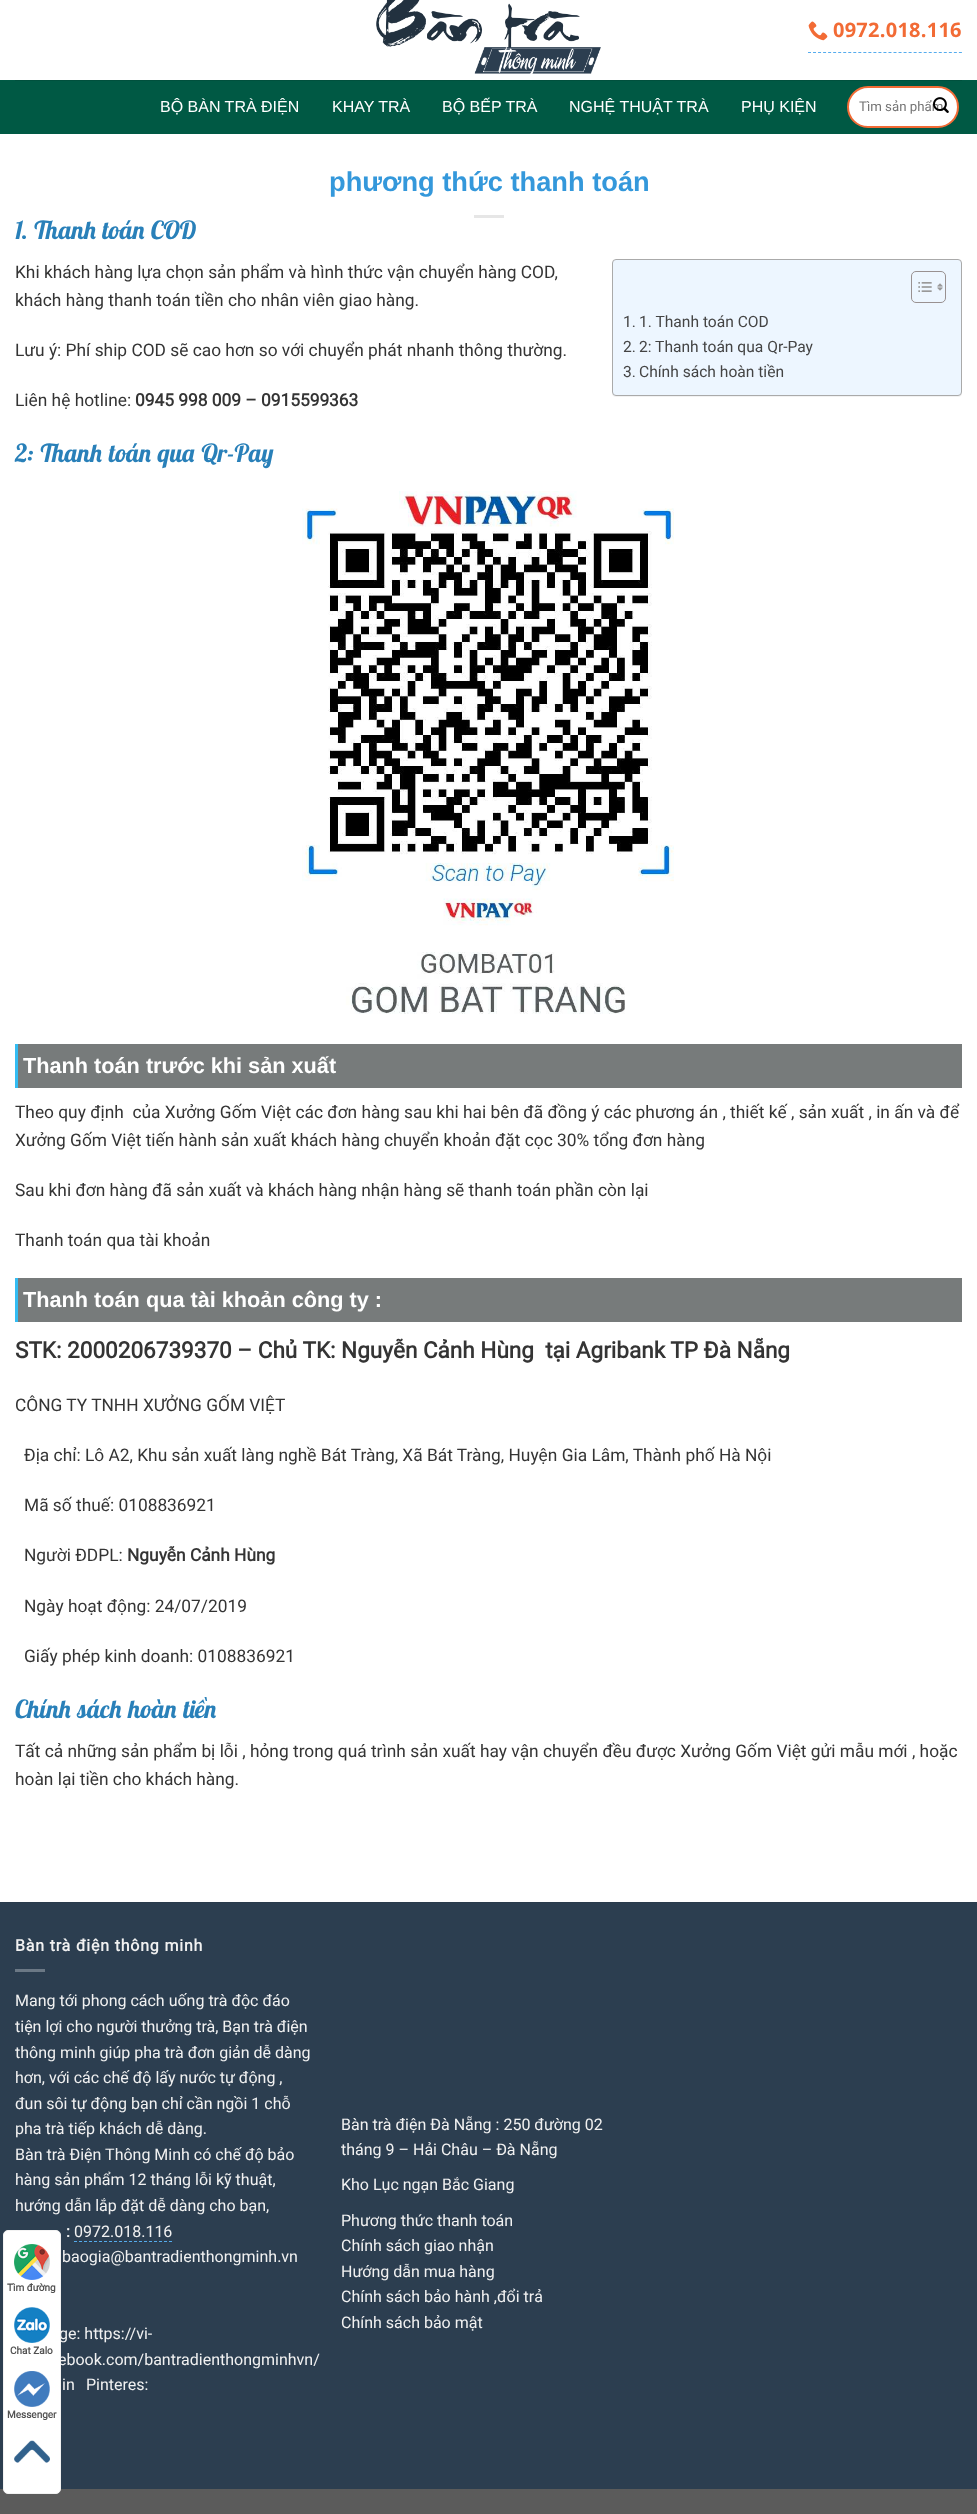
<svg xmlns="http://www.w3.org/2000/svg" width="977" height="2514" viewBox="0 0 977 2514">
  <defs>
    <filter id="blur1" x="-50%" y="-200%" width="200%" height="500%"><feGaussianBlur stdDeviation="0.5"/></filter>
  </defs>
  <rect width="100%" height="100%" fill="#ffffff"/>
  <image x="376" y="0" width="225" height="74" href="img1.png"/>
  <path d="M808 52.5H962" fill="none" stroke="#55acee" stroke-dasharray="3 2.03"/>
  <image x="808" y="21" width="20" height="20" href="img2.png"/>
  <text x="833" y="37" font-family="Open Sans" font-size="20" font-weight="bold" letter-spacing="0.25" fill="#f26b35">0972.018.116</text>
  <rect x="0" y="80" width="977" height="54" fill="#005944"/>
  <rect x="15" y="80" width="947" height="1" fill="#00503d"/>
  <text x="160" y="112" font-family="Liberation Sans" font-size="16" fill="#ffffff">BỘ BÀN TRÀ ĐIỆN</text>
  <text x="332" y="112" font-family="Liberation Sans" font-size="16" fill="#ffffff">KHAY TRÀ</text>
  <text x="442" y="112" font-family="Liberation Sans" font-size="16" fill="#ffffff">BỘ BẾP TRÀ</text>
  <text x="569" y="112" font-family="Liberation Sans" font-size="16" fill="#ffffff">NGHỆ THUẬT TRÀ</text>
  <text x="741" y="112" font-family="Liberation Sans" font-size="16" fill="#ffffff">PHỤ KIỆN</text>
  <rect x="848" y="87" width="110" height="40" rx="20" fill="#ffffff" stroke="#f26b35" stroke-width="2"/>
  <text x="859" y="111" font-family="Roboto" font-size="13.25" fill="#757575">Tìm sản phẩm</text>
  <image x="933" y="97" width="16" height="16" href="img3.png"/>
  <text x="329" y="191" font-family="Liberation Sans" font-size="27.25" font-weight="bold" fill="#3498db">phương thức thanh toán</text>
  <rect x="474" y="215" width="30" height="3" fill="#e6e6e6"/>
  <text x="15" y="239" word-spacing="1" font-family="Lobster" font-size="25" fill="#2980b9">1. Thanh toán COD</text>
  <text x="15" y="278" font-family="Roboto" font-size="17.33" fill="#343434">Khi khách hàng lựa chọn sản phẩm và hình thức vận chuyển hàng COD,</text>
  <text x="15" y="306" font-family="Roboto" font-size="17.33" fill="#343434">khách hàng thanh toán tiền cho nhân viên giao hàng.</text>
  <text x="15" y="356" font-family="Roboto" font-size="17.33" fill="#343434">Lưu ý: Phí ship COD sẽ cao hơn so với chuyển phát nhanh thông thường.</text>
  <rect x="612" y="260" width="350" height="137" rx="4" fill="#000000" fill-opacity="0.05" filter="url(#blur1)"/>
  <rect x="612.5" y="259.5" width="349" height="136" rx="3.5" fill="#edf6ff" stroke="#aaaaaa"/>
  <rect x="911.5" y="271.5" width="34" height="31" rx="4.5" fill="none" stroke="#999191"/>
  <image x="918" y="282" width="14" height="10" href="img4.png"/>
  <image x="937" y="283" width="6" height="8" href="img5.png"/>
  <text x="623" y="327" font-family="Roboto" font-size="15.6" fill="#444444">1.</text>
  <text x="639" y="327" font-family="Roboto" font-size="15.6" fill="#444444">1. Thanh toán COD</text>
  <text x="623" y="352" font-family="Roboto" font-size="15.6" fill="#444444">2.</text>
  <text x="639" y="352" font-family="Roboto" font-size="15.6" fill="#444444">2: Thanh toán qua Qr-Pay</text>
  <text x="623" y="377" font-family="Roboto" font-size="15.6" fill="#444444">3.</text>
  <text x="639" y="377" font-family="Roboto" font-size="15.6" fill="#444444">Chính sách hoàn tiền</text>
  <text x="15" y="406" font-family="Roboto" font-size="17.33" fill="#343434">Liên hệ hotline:</text>
  <text x="135" y="406" font-family="Roboto" font-size="17.33" font-weight="bold" fill="#343434">0945 998 009 – 0915599363</text>
  <text x="15" y="462" word-spacing="1.5" font-family="Lobster" font-size="25" fill="#2980b9">2: Thanh toán qua Qr-Pay</text>
  <image x="302" y="491" width="372" height="523" href="img6.png"/>
  <rect x="18" y="1044" width="944" height="44" fill="#777b7b"/>
  <rect x="15" y="1044" width="3" height="44" fill="#33bcf2"/>
  <text x="23" y="1073" font-family="Liberation Sans" font-size="21.7" font-weight="bold" fill="#ffffff">Thanh toán trước khi sản xuất</text>
  <text x="15" y="1118" font-family="Roboto" font-size="17.33" fill="#343434" xml:space="preserve">Theo quy định  của Xưởng Gốm Việt các đơn hàng sau khi hai bên đã đồng ý các phương án , thiết kế , sản xuất , in ấn và để</text>
  <text x="15" y="1146" font-family="Roboto" font-size="17.33" fill="#343434">Xưởng Gốm Việt tiến hành sản xuất khách hàng chuyển khoản đặt cọc 30% tổng đơn hàng</text>
  <text x="15" y="1196" font-family="Roboto" font-size="17.33" fill="#343434">Sau khi đơn hàng đã sản xuất và khách hàng nhận hàng sẽ thanh toán phần còn lại</text>
  <text x="15" y="1246" font-family="Roboto" font-size="17.33" fill="#343434">Thanh toán qua tài khoản</text>
  <rect x="18" y="1278" width="944" height="44" fill="#777b7b"/>
  <rect x="15" y="1278" width="3" height="44" fill="#33bcf2"/>
  <text x="23" y="1307" font-family="Liberation Sans" font-size="21.7" font-weight="bold" fill="#ffffff">Thanh toán qua tài khoản công ty :</text>
  <text x="15" y="1358" font-family="Roboto" font-size="22.55" font-weight="bold" fill="#343434" xml:space="preserve">STK: 2000206739370 – Chủ TK: Nguyễn Cảnh Hùng  tại Agribank TP Đà Nẵng</text>
  <text x="15" y="1411" font-family="Roboto" font-size="17.33" fill="#343434">CÔNG TY TNHH XƯỞNG GỐM VIỆT</text>
  <text x="24" y="1461" font-family="Roboto" font-size="17.33" fill="#343434">Địa chỉ: Lô A2, Khu sản xuất làng nghề Bát Tràng, Xã Bát Tràng, Huyện Gia Lâm, Thành phố Hà Nội</text>
  <text x="24" y="1511" font-family="Roboto" font-size="17.33" fill="#343434">Mã số thuế: 0108836921</text>
  <text x="24" y="1561" font-family="Roboto" font-size="17.33" fill="#343434">Người ĐDPL:</text>
  <text x="127" y="1561" font-family="Roboto" font-size="17.33" font-weight="bold" fill="#343434">Nguyễn Cảnh Hùng</text>
  <text x="24" y="1612" font-family="Roboto" font-size="17.33" fill="#343434">Ngày hoạt động: 24/07/2019</text>
  <text x="24" y="1662" font-family="Roboto" font-size="17.33" fill="#343434">Giấy phép kinh doanh: 0108836921</text>
  <text x="15" y="1718" word-spacing="1.5" font-family="Lobster" font-size="25" fill="#2980b9">Chính sách hoàn tiền</text>
  <text x="15" y="1757" font-family="Roboto" font-size="17.33" fill="#343434">Tất cả những sản phẩm bị lỗi , hỏng trong quá trình sản xuất hay vận chuyển đều được Xưởng Gốm Việt gửi mẫu mới , hoặc</text>
  <text x="15" y="1785" font-family="Roboto" font-size="17.33" fill="#343434">hoàn lại tiền cho khách hàng.</text>
  <rect x="0" y="1903" width="977" height="586" fill="#2c3e50"/>
  <rect x="0" y="1902" width="977" height="1" fill="#2a3b4c"/>
  <text x="15" y="1951" font-family="Roboto" font-size="16" font-weight="bold" letter-spacing="0.8" fill="#f1f1f1">Bàn trà điện thông minh</text>
  <rect x="15" y="1969" width="30" height="3" fill="#6b7885"/>
  <text x="15" y="2006" font-family="Roboto" font-size="16" fill="#f1f1f1">Mang tới phong cách uống trà độc đáo</text>
  <text x="15" y="2032" font-family="Roboto" font-size="16" fill="#f1f1f1">tiện lợi cho người thưởng trà, Bạn trà điện</text>
  <text x="15" y="2058" font-family="Roboto" font-size="16" fill="#f1f1f1">thông minh giúp pha trà đơn giản dễ dàng</text>
  <text x="15" y="2083" font-family="Roboto" font-size="16" fill="#f1f1f1">hơn, với các chế độ lấy nước tự động ,</text>
  <text x="15" y="2109" font-family="Roboto" font-size="16" fill="#f1f1f1">đun sôi tự động bạn chỉ cần ngồi 1 chỗ</text>
  <text x="15" y="2134" font-family="Roboto" font-size="16" fill="#f1f1f1">pha trà tiếp khách dễ dàng.</text>
  <text x="15" y="2160" font-family="Roboto" font-size="16" fill="#f1f1f1">Bàn trà Điện Thông Minh có chế độ bảo</text>
  <text x="15" y="2185" font-family="Roboto" font-size="16" fill="#f1f1f1">hàng sản phẩm 12 tháng lỗi kỹ thuật,</text>
  <text x="15" y="2211" font-family="Roboto" font-size="16" fill="#f1f1f1">hướng dẫn lắp đặt dễ dàng cho bạn,</text>
  <text x="66" y="2237" font-family="Roboto" font-size="16" font-weight="bold" fill="#f1f1f1">:</text>
  <text x="74" y="2237" font-family="Roboto" font-size="16" fill="#f1f1f1">0972.018.116</text>
  <path d="M74 2241.5H172" fill="none" stroke="#55acee" stroke-dasharray="3 2"/>
  <text x="62" y="2262" font-family="Roboto" font-size="16" fill="#f1f1f1">baogia@bantradienthongminh.vn</text>
  <text x="59" y="2339" font-family="Roboto" font-size="16" fill="#f1f1f1">ge: https://vi-</text>
  <text x="58" y="2365" font-family="Roboto" font-size="16" fill="#f1f1f1">ebook.com/bantradienthongminhvn/</text>
  <text x="62" y="2390" font-family="Roboto" font-size="16" fill="#f1f1f1">in</text>
  <text x="86" y="2390" font-family="Roboto" font-size="16" fill="#f1f1f1">Pinteres:</text>
  <text x="341" y="2130" font-family="Roboto" font-size="16" fill="#f1f1f1">Bàn trà điện Đà Nẵng : 250 đường 02</text>
  <text x="341" y="2155" font-family="Roboto" font-size="16" fill="#f1f1f1">tháng 9 – Hải Châu – Đà Nẵng</text>
  <text x="341" y="2190" font-family="Roboto" font-size="16" fill="#f1f1f1">Kho Lục ngạn Bắc Giang</text>
  <text x="341" y="2226" font-family="Roboto" font-size="16" fill="#f1f1f1">Phương thức thanh toán</text>
  <text x="341" y="2251" font-family="Roboto" font-size="16" fill="#f1f1f1">Chính sách giao nhận</text>
  <text x="341" y="2277" font-family="Roboto" font-size="16" fill="#f1f1f1">Hướng dẫn mua hàng</text>
  <text x="341" y="2302" font-family="Roboto" font-size="16" fill="#f1f1f1">Chính sách bảo hành ,đổi trả</text>
  <text x="341" y="2328" font-family="Roboto" font-size="16" fill="#f1f1f1">Chính sách bảo mật</text>
  <rect x="0" y="2489" width="977" height="25" fill="#5b5b5b"/>
  <rect x="3.5" y="2230.5" width="57" height="263" rx="4.5" fill="#ffffff" stroke="#f2f2f2"/>
  <image x="14" y="2244" width="36" height="36" href="img7.png"/>
  <text x="7" y="2291" font-family="Roboto" font-size="10" font-weight="bold" fill="#515151">Tìm đường</text>
  <image x="14" y="2307" width="36" height="36" href="img8.png"/>
  <text x="10" y="2354" font-family="Roboto" font-size="10" font-weight="bold" fill="#515151">Chat Zalo</text>
  <image x="14" y="2371" width="36" height="36" href="img9.png"/>
  <text x="7" y="2418" font-family="Roboto" font-size="10" font-weight="bold" fill="#515151">Messenger</text>
  <image x="14" y="2440" width="36" height="23" href="img10.png"/>
</svg>
